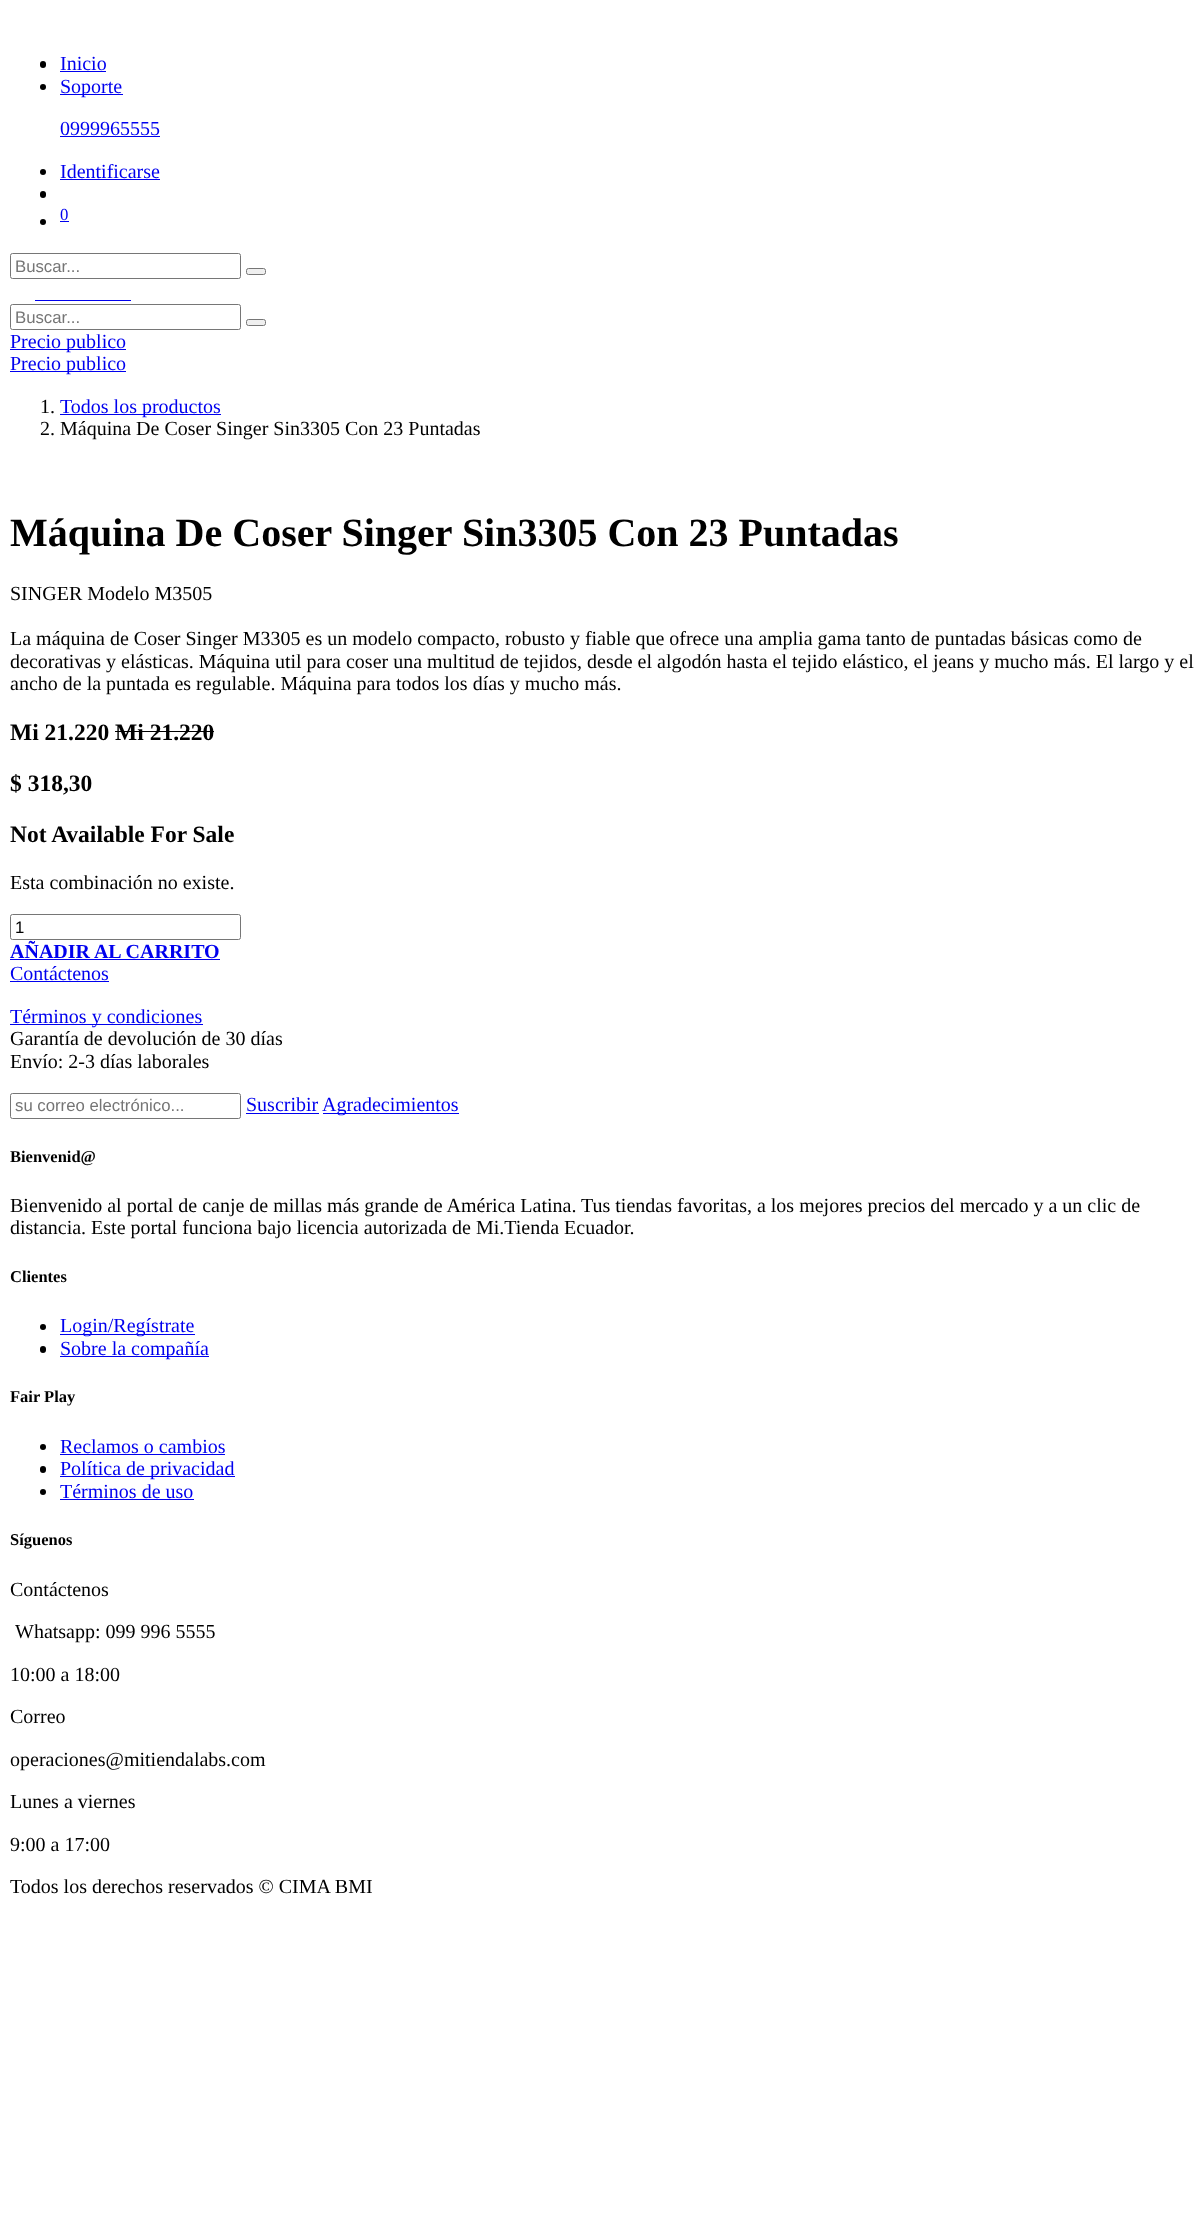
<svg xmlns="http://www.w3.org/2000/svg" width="1203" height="2237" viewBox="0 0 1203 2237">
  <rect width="100%" height="100%" fill="#ffffff"/>
  <rect x="40" y="61" width="6" height="7" rx="3" fill="#000000"/>
  <text x="60" y="70" font-family="Liberation Serif" font-size="20" fill="#0000ee">Inicio</text>
  <rect x="60" y="71" width="46" height="1" fill="#0000ee"/>
  <circle cx="43" cy="87" r="3" fill="#000000"/>
  <rect x="60" y="94" width="63" height="1" fill="#0000ee"/>
  <text x="60" y="93" font-family="Liberation Serif" font-size="20" fill="#0000ee">Soporte</text>
  <text x="60" y="135" font-family="Liberation Serif" font-size="20" fill="#0000ee">0999965555</text>
  <rect x="60" y="136" width="100" height="1" fill="#0000ee"/>
  <circle cx="43" cy="172" r="3" fill="#000000"/>
  <text x="60" y="178" font-family="Liberation Serif" font-size="20" fill="#0000ee">Identificarse</text>
  <rect x="60" y="179" width="100" height="1" fill="#0000ee"/>
  <rect x="40" y="191" width="6" height="7" rx="3" fill="#000000"/>
  <text x="60" y="220" font-family="Liberation Serif" font-size="16.75" fill="#0000ee">0</text>
  <rect x="60" y="221" width="9" height="1" fill="#0000ee"/>
  <circle cx="43" cy="222" r="3" fill="#000000"/>
  <rect x="10.5" y="253.5" width="230" height="25" rx="2" fill="none" stroke="#767676"/>
  <text x="15" y="272" font-family="Liberation Sans" font-size="16.75" fill="#757575">Buscar...</text>
  <rect x="246.5" y="268.5" width="19" height="6" rx="2" fill="#efefef" stroke="#767676"/>
  <rect x="35" y="300" width="96" height="1" fill="#0000ee"/>
  <rect x="10.5" y="304.5" width="230" height="25" rx="2" fill="none" stroke="#767676"/>
  <text x="15" y="323" font-family="Liberation Sans" font-size="16.75" fill="#757575">Buscar...</text>
  <rect x="246.5" y="319.5" width="19" height="6" rx="2" fill="#efefef" stroke="#767676"/>
  <rect x="10" y="349" width="116" height="1" fill="#0000ee"/>
  <text x="10" y="348" font-family="Liberation Serif" font-size="20" fill="#0000ee">Precio publico</text>
  <rect x="10" y="371" width="116" height="1" fill="#0000ee"/>
  <text x="10" y="370" font-family="Liberation Serif" font-size="20" fill="#0000ee">Precio publico</text>
  <text x="40" y="413" font-family="Liberation Serif" font-size="20" fill="#000000">1.</text>
  <rect x="60" y="414" width="161" height="1" fill="#0000ee"/>
  <text x="60" y="413" font-family="Liberation Serif" font-size="20" fill="#0000ee">Todos los productos</text>
  <text x="40" y="435" font-family="Liberation Serif" font-size="20" fill="#000000">2. Máquina De Coser Singer Sin3305 Con 23 Puntadas</text>
  <text x="10" y="546" font-family="Liberation Serif" font-size="40" font-weight="bold" fill="#000000">Máquina De Coser Singer Sin3305 Con 23 Puntadas</text>
  <text x="10" y="600" font-family="Liberation Serif" font-size="20" fill="#000000">SINGER Modelo M3505</text>
  <text x="10" y="645" font-family="Liberation Serif" font-size="20" fill="#000000">La máquina de Coser Singer M3305 es un modelo compacto, robusto y fiable que ofrece una amplia gama tanto de puntadas básicas como de</text>
  <text x="10" y="668" font-family="Liberation Serif" font-size="20" fill="#000000">decorativas y elásticas. Máquina util para coser una multitud de tejidos, desde el algodón hasta el tejido elástico, el jeans y mucho más. El largo y el</text>
  <text x="10" y="690" font-family="Liberation Serif" font-size="20" fill="#000000">ancho de la puntada es regulable. Máquina para todos los días y mucho más.</text>
  <text x="10" y="740" font-family="Liberation Serif" font-size="23.5" font-weight="bold" fill="#000000">Mi 21.220 Mi 21.220</text>
  <rect x="115" y="731" width="99" height="1" fill="#000000"/>
  <text x="10" y="791" font-family="Liberation Serif" font-size="23.5" font-weight="bold" fill="#000000">$ 318,30</text>
  <text x="10" y="842" font-family="Liberation Serif" font-size="23.5" font-weight="bold" fill="#000000">Not Available For Sale</text>
  <text x="10" y="889" font-family="Liberation Serif" font-size="20" fill="#000000">Esta combinación no existe.</text>
  <rect x="10.5" y="914.5" width="230" height="25" rx="2" fill="none" stroke="#767676"/>
  <text x="15" y="933" font-family="Liberation Sans" font-size="16.75" fill="#000000">1</text>
  <text x="10" y="958" font-family="Liberation Serif" font-size="20" font-weight="bold" fill="#0000ee">AÑADIR AL CARRITO</text>
  <rect x="10" y="959" width="210" height="1" fill="#0000ee"/>
  <text x="10" y="980" font-family="Liberation Serif" font-size="20" fill="#0000ee">Contáctenos</text>
  <rect x="10" y="981" width="99" height="1" fill="#0000ee"/>
  <rect x="10" y="1024" width="193" height="1" fill="#0000ee"/>
  <text x="10" y="1023" font-family="Liberation Serif" font-size="20" fill="#0000ee">Términos y condiciones</text>
  <text x="10" y="1045" font-family="Liberation Serif" font-size="20" fill="#000000">Garantía de devolución de 30 días</text>
  <text x="10" y="1068" font-family="Liberation Serif" font-size="20" fill="#000000">Envío: 2-3 días laborales</text>
  <rect x="10.5" y="1093.5" width="230" height="25" rx="2" fill="none" stroke="#767676"/>
  <text x="15" y="1111" font-family="Liberation Sans" font-size="16.75" fill="#757575">su correo electrónico...</text>
  <text x="246" y="1111" font-family="Liberation Serif" font-size="20" fill="#0000ee">Suscribir</text>
  <rect x="246" y="1113" width="73" height="1" fill="#0000ee"/>
  <rect x="323" y="1113" width="136" height="1" fill="#0000ee"/>
  <text x="322" y="1111" font-family="Liberation Serif" font-size="20" fill="#0000ee">Agradecimientos</text>
  <text x="10" y="1162" font-family="Liberation Serif" font-size="16.5" font-weight="bold" fill="#000000">Bienvenid@</text>
  <text x="10" y="1212" font-family="Liberation Serif" font-size="20" fill="#000000">Bienvenido al portal de canje de millas más grande de América Latina.</text>
  <text x="581" y="1212" font-family="Liberation Serif" font-size="20" fill="#000000">Tus tiendas favoritas, a los mejores precios del mercado y a un clic de</text>
  <text x="10" y="1234" font-family="Liberation Serif" font-size="20" fill="#000000">distancia. Este portal funciona bajo licencia autorizada de Mi.Tienda Ecuador.</text>
  <text x="10" y="1282" font-family="Liberation Serif" font-size="16.5" font-weight="bold" fill="#000000">Clientes</text>
  <circle cx="43" cy="1327" r="3" fill="#000000"/>
  <rect x="60" y="1334" width="135" height="1" fill="#0000ee"/>
  <text x="60" y="1332" font-family="Liberation Serif" font-size="20" fill="#0000ee">Login/Regístrate</text>
  <rect x="40" y="1346" width="6" height="7" rx="3" fill="#000000"/>
  <rect x="60" y="1356" width="149" height="1" fill="#0000ee"/>
  <text x="60" y="1355" font-family="Liberation Serif" font-size="20" fill="#0000ee">Sobre la compañía</text>
  <text x="10" y="1402" font-family="Liberation Serif" font-size="16.5" font-weight="bold" fill="#000000">Fair Play</text>
  <circle cx="43" cy="1447" r="3" fill="#000000"/>
  <text x="60" y="1453" font-family="Liberation Serif" font-size="20" fill="#0000ee">Reclamos o cambios</text>
  <rect x="60" y="1454" width="165" height="1" fill="#0000ee"/>
  <rect x="40" y="1466" width="6" height="7" rx="3" fill="#000000"/>
  <rect x="60" y="1476" width="175" height="1" fill="#0000ee"/>
  <text x="60" y="1475" font-family="Liberation Serif" font-size="20" fill="#0000ee">Política de privacidad</text>
  <circle cx="43" cy="1492" r="3" fill="#000000"/>
  <text x="60" y="1498" font-family="Liberation Serif" font-size="20" fill="#0000ee">Términos de uso</text>
  <rect x="60" y="1499" width="134" height="1" fill="#0000ee"/>
  <text x="10" y="1545" font-family="Liberation Serif" font-size="16.5" font-weight="bold" fill="#000000">Síguenos</text>
  <text x="10" y="1596" font-family="Liberation Serif" font-size="20" fill="#000000">Contáctenos</text>
  <text x="15" y="1638" font-family="Liberation Serif" font-size="20" fill="#000000">Whatsapp: 099 996 5555</text>
  <text x="10" y="1681" font-family="Liberation Serif" font-size="20" fill="#000000">10:00 a 18:00</text>
  <text x="10" y="1723" font-family="Liberation Serif" font-size="20" fill="#000000">Correo</text>
  <text x="10" y="1766" font-family="Liberation Serif" font-size="20" fill="#000000">operaciones@mitiendalabs.com</text>
  <text x="10" y="1808" font-family="Liberation Serif" font-size="20" fill="#000000">Lunes a viernes</text>
  <text x="10" y="1851" font-family="Liberation Serif" font-size="20" fill="#000000">9:00 a 17:00</text>
  <text x="10" y="1893" font-family="Liberation Serif" font-size="20" fill="#000000">Todos los derechos reservados © CIMA BMI</text>
</svg>
